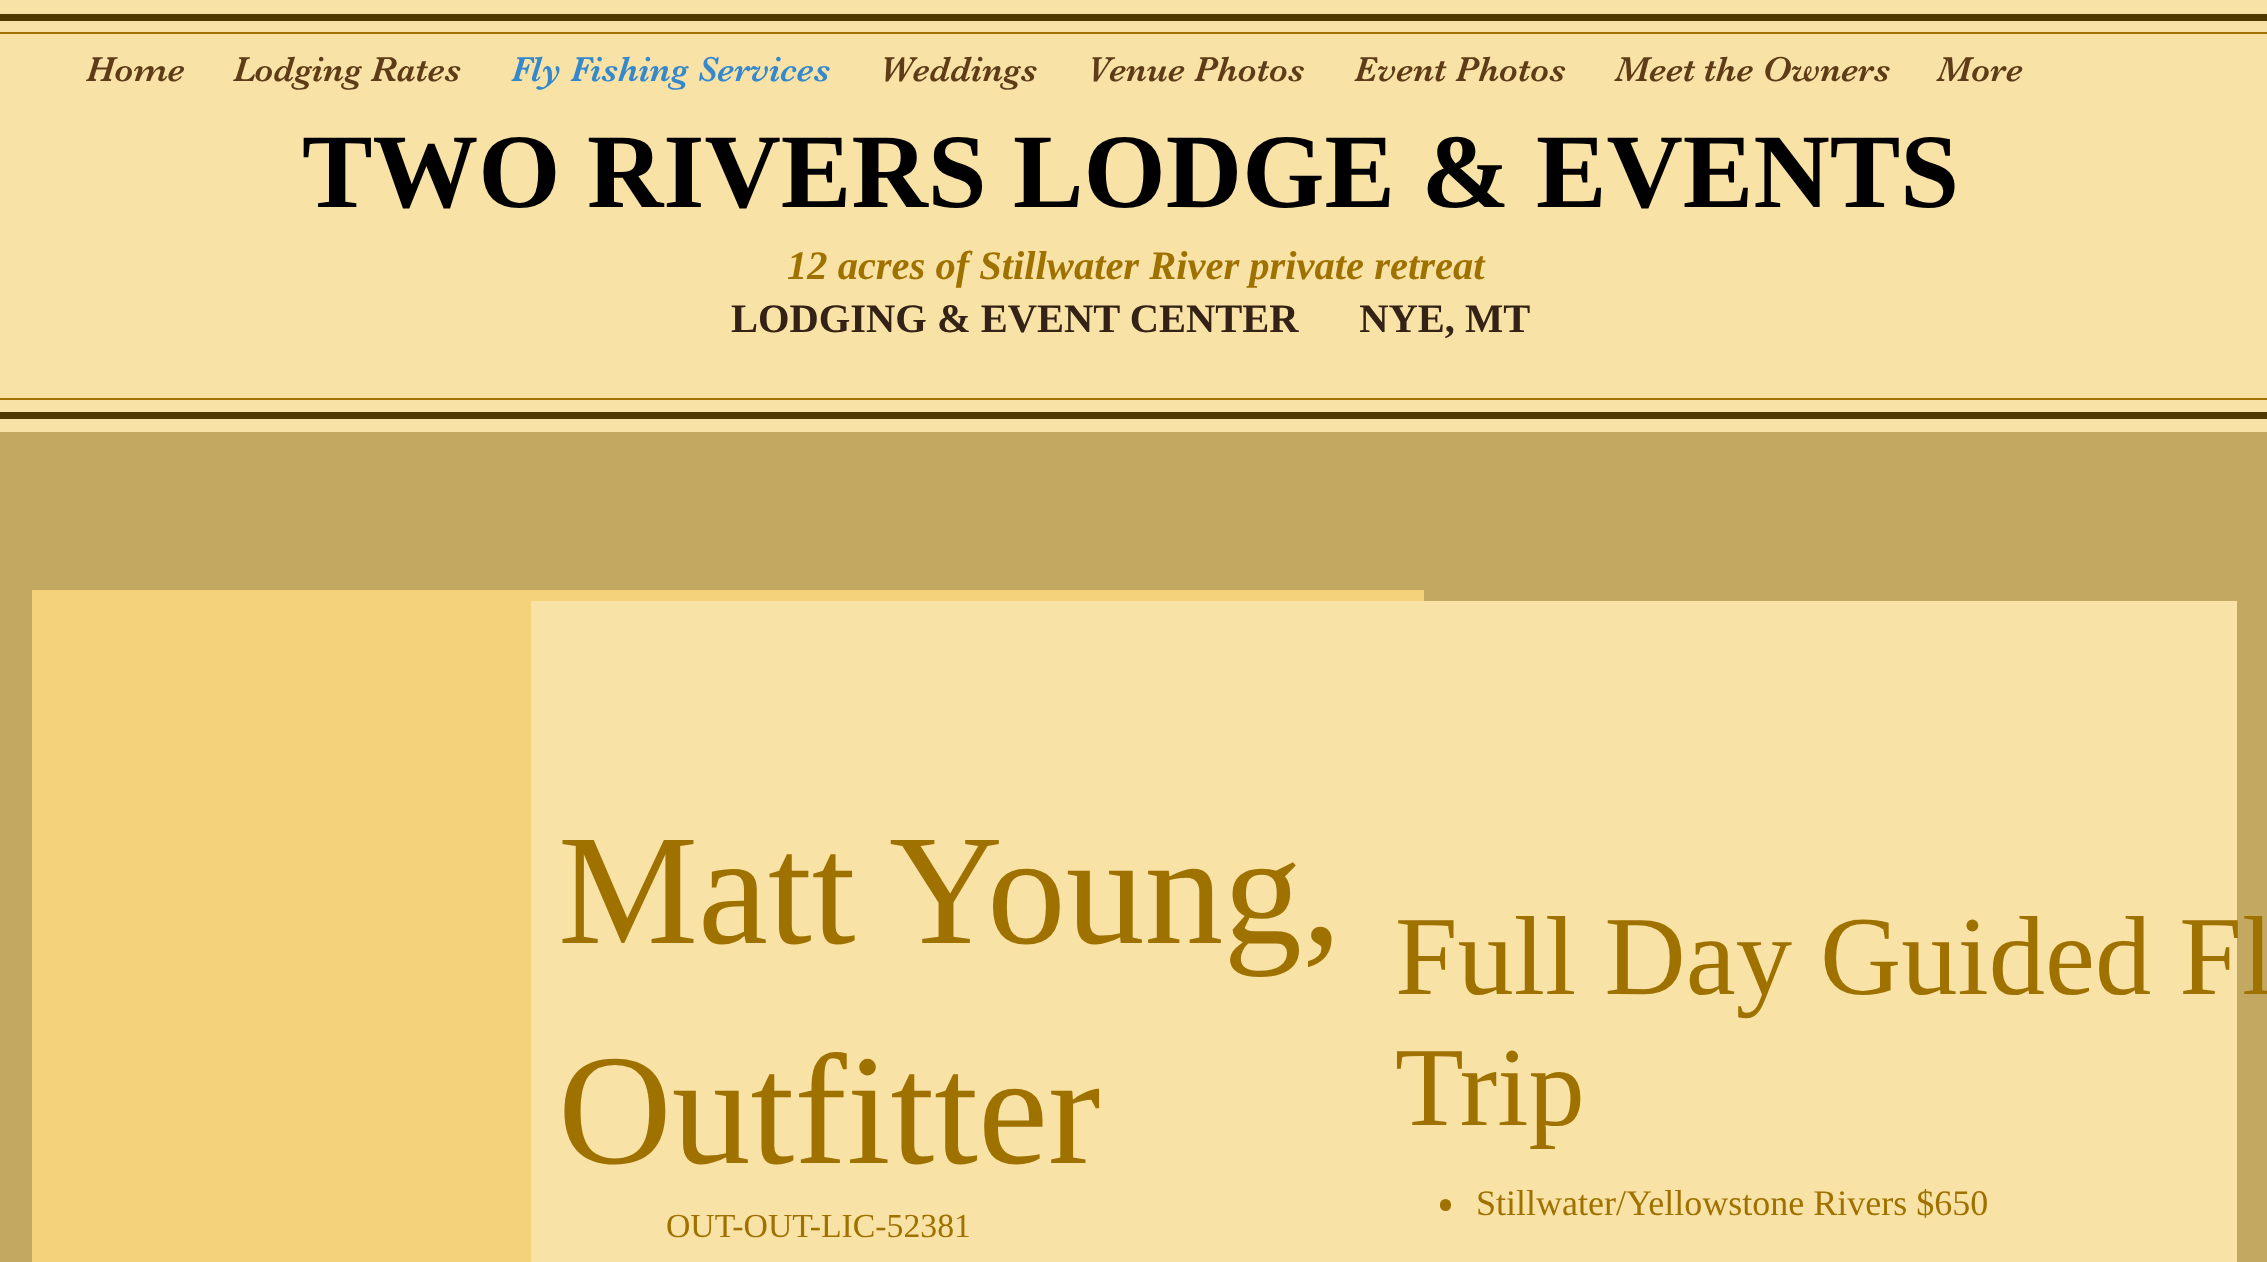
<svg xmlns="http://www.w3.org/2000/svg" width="2267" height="1262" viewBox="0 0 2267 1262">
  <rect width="100%" height="100%" fill="#f9e2a6"/>
  <rect x="0" y="14" width="2267" height="7" fill="#4f3900"/>
  <rect x="0" y="412" width="2267" height="7" fill="#4f3900"/>
  <rect x="0" y="32" width="2267" height="2" fill="#9f7200"/>
  <rect x="0" y="398" width="2267" height="2" fill="#9f7200"/>
  <text x="86" y="81" font-family="'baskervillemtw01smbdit'" font-size="36" fill="#5e3c17">Home</text>
  <text x="233" y="81" font-family="'baskervillemtw01smbdit'" font-size="36" fill="#5e3c17">Lodging Rates</text>
  <text x="511" y="81" font-family="'baskervillemtw01smbdit'" font-size="36" fill="#3588cc">Fly Fishing Services</text>
  <text x="880" y="81" font-family="'baskervillemtw01smbdit'" font-size="36" fill="#5e3c17">Weddings</text>
  <text x="1087" y="81" font-family="'baskervillemtw01smbdit'" font-size="36" fill="#5e3c17">Venue Photos</text>
  <text x="1354" y="81" font-family="'baskervillemtw01smbdit'" font-size="36" fill="#5e3c17">Event Photos</text>
  <text x="1615" y="81" font-family="'baskervillemtw01smbdit'" font-size="36" fill="#5e3c17">Meet the Owners</text>
  <text x="1937" y="81" font-family="'baskervillemtw01smbdit'" font-size="36" fill="#5e3c17">More</text>
  <text x="302" y="207" font-family="Liberation Serif" font-size="105.75" font-weight="bold" fill="#000000">TWO RIVERS LODGE &amp; EVENTS</text>
  <text x="787" y="279" font-family="Liberation Serif" font-size="40.5" font-weight="bold" font-style="italic" fill="#9f7200">12 acres of Stillwater River private retreat</text>
  <text x="731" y="332" font-family="Liberation Serif" font-size="40.5" font-weight="bold" fill="#342216" xml:space="preserve">LODGING &amp; EVENT CENTER      NYE, MT</text>
  <rect x="0" y="432" width="2267" height="830" fill="#c3a862"/>
  <rect x="32" y="590" width="1392" height="672" fill="#f4d27a"/>
  <rect x="531" y="601" width="1706" height="661" fill="#f9e2a6"/>
  <text x="558" y="943" font-family="Liberation Serif" font-size="157.5" fill="#9f7200">Matt Young,</text>
  <text x="558" y="1163" font-family="Liberation Serif" font-size="157.5" fill="#9f7200">Outfitter</text>
  <text x="666" y="1237" font-family="Liberation Serif" font-size="33.75" fill="#9f7200">OUT-OUT-LIC-52381</text>
  <text x="1395" y="994" font-family="Liberation Serif" font-size="112.5" fill="#9f7200">Full Day Guided Fl</text>
  <text x="1395" y="1125" font-family="Liberation Serif" font-size="112.5" fill="#9f7200">Trip</text>
  <rect x="1440" y="1199" width="11" height="12" rx="5.5" fill="#9f7200"/>
  <text x="1476" y="1215" font-family="Liberation Serif" font-size="36" fill="#9f7200">Stillwater/Yellowstone Rivers $650</text>
</svg>
